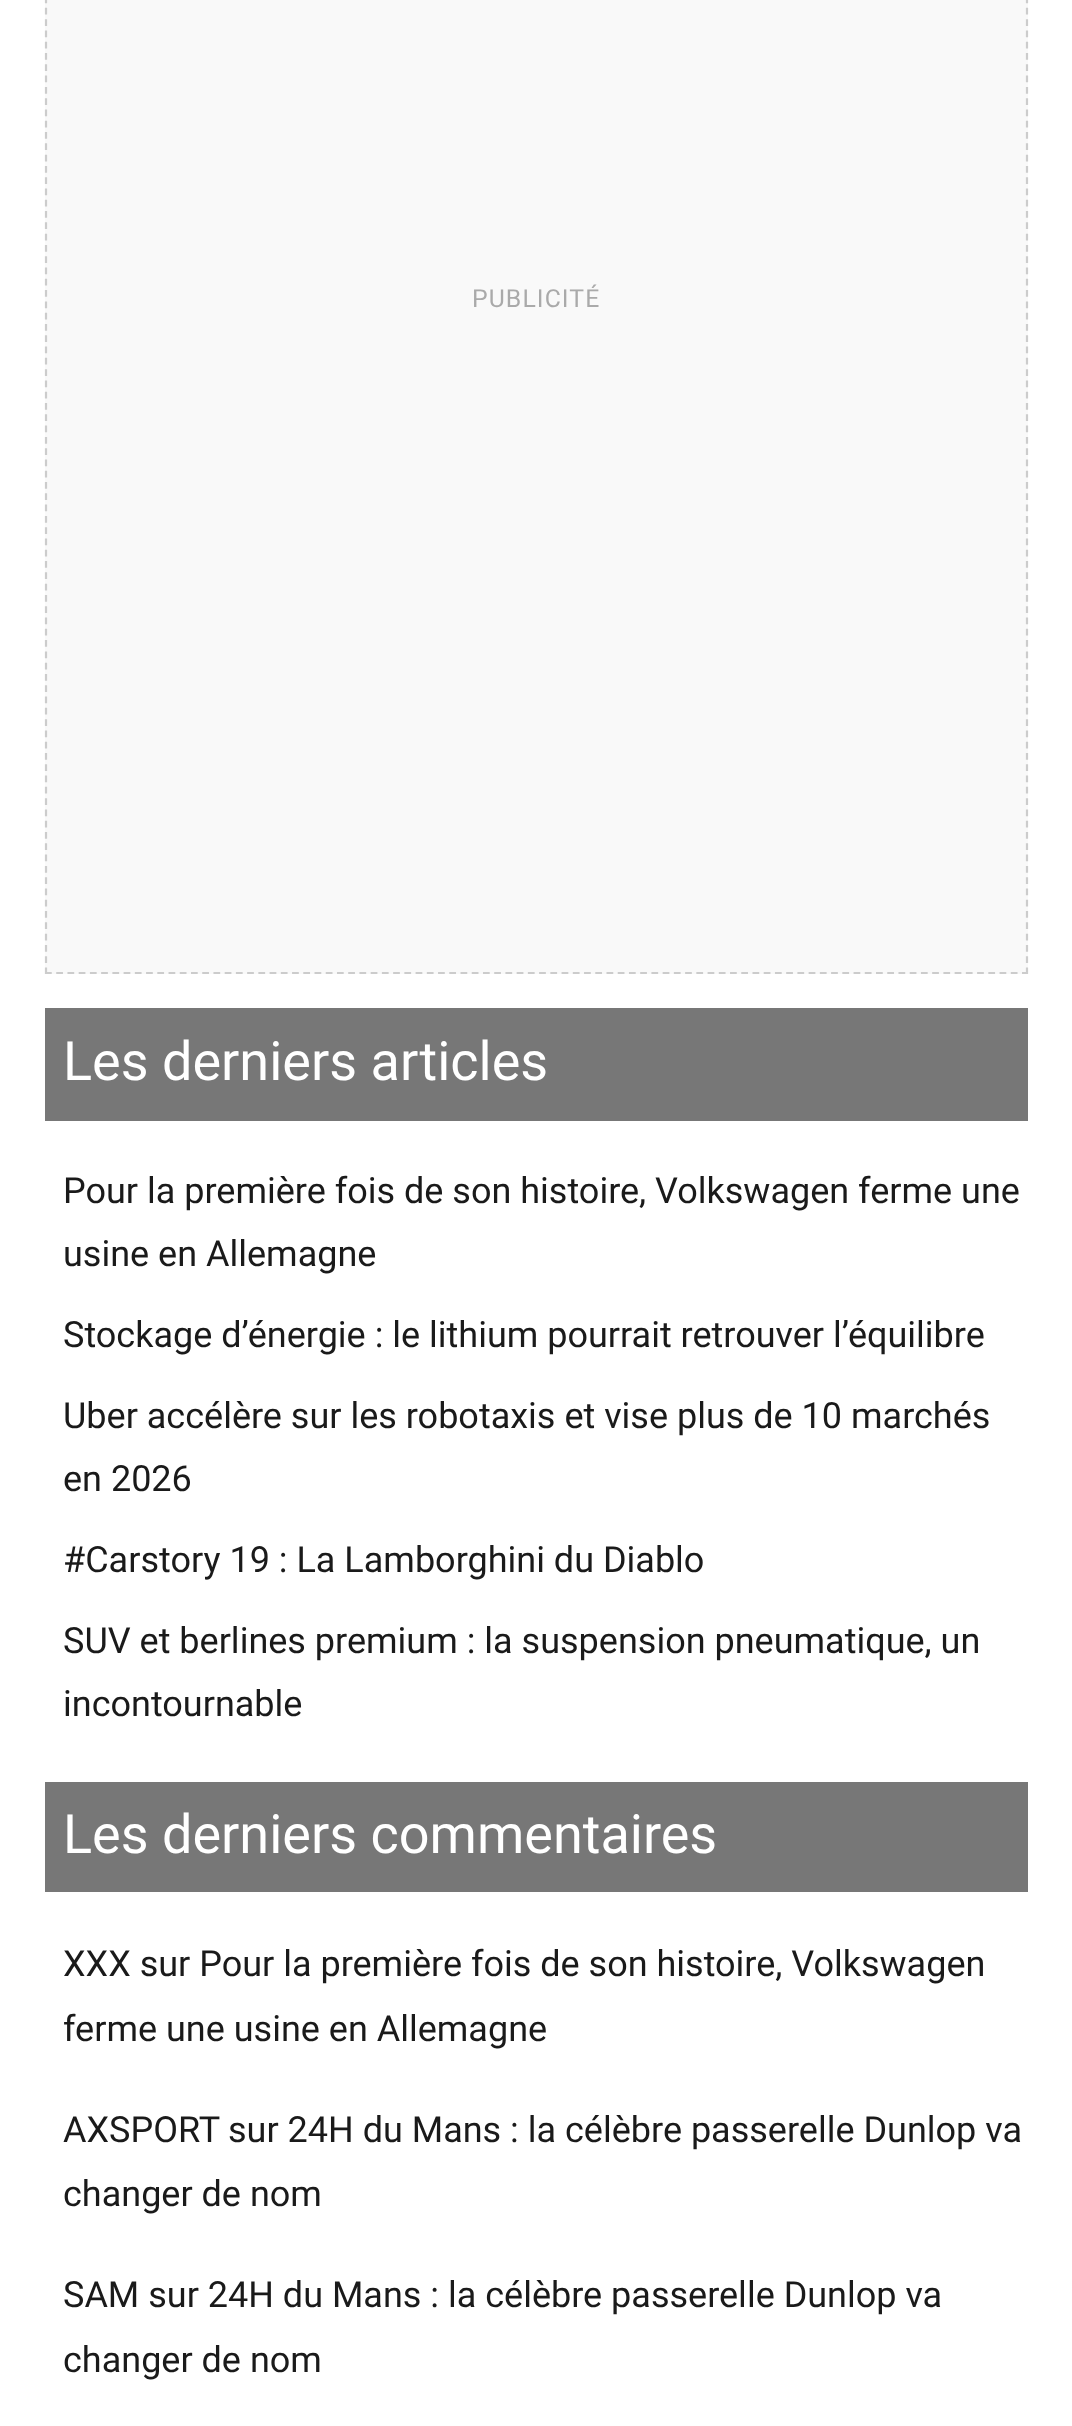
<svg xmlns="http://www.w3.org/2000/svg" width="1072" height="2426" viewBox="0 0 1072 2426">
  <rect width="100%" height="100%" fill="#ffffff"/>
  <rect x="45" y="0" width="983" height="974" fill="#f9f9f9"/>
  <path d="M1027-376V974" fill="none" stroke="#cccccc" stroke-width="2.2" stroke-dasharray="6.75 4.54"/>
  <path d="M45 973H1028" fill="none" stroke="#cccccc" stroke-width="2.2" stroke-dasharray="6.75 4.48"/>
  <path d="M46-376V974" fill="none" stroke="#cccccc" stroke-width="2.2" stroke-dasharray="6.75 4.54"/>
  <text x="472" y="307" font-family="Roboto" font-size="24.75" letter-spacing="1.1" fill="#aaaaaa">PUBLICITÉ</text>
  <rect x="45" y="1008" width="983" height="113" fill="#777777"/>
  <text x="63" y="1080" font-family="Roboto" font-size="54" fill="#ffffff">Les derniers articles</text>
  <text x="63" y="1203" font-family="Roboto" font-size="36" fill="#1a1a1a">Pour la première fois de son histoire, Volkswagen ferme une</text>
  <text x="63" y="1266" font-family="Roboto" font-size="36" fill="#1a1a1a">usine en Allemagne</text>
  <text x="63" y="1347" font-family="Roboto" font-size="36" fill="#1a1a1a">Stockage d’énergie : le lithium pourrait retrouver l’équilibre</text>
  <text x="63" y="1428" font-family="Roboto" font-size="36" fill="#1a1a1a">Uber accélère sur les robotaxis et vise plus de 10 marchés</text>
  <text x="63" y="1491" font-family="Roboto" font-size="36" fill="#1a1a1a">en 2026</text>
  <text x="63" y="1572" font-family="Roboto" font-size="36" fill="#1a1a1a">#Carstory 19 : La Lamborghini du Diablo</text>
  <text x="63" y="1653" font-family="Roboto" font-size="36" fill="#1a1a1a">SUV et berlines premium : la suspension pneumatique, un</text>
  <text x="63" y="1716" font-family="Roboto" font-size="36" fill="#1a1a1a">incontournable</text>
  <rect x="45" y="1782" width="983" height="110" fill="#777777"/>
  <text x="63" y="1853" font-family="Roboto" font-size="54" fill="#ffffff">Les derniers commentaires</text>
  <text x="63" y="1976" font-family="Roboto" font-size="36" fill="#1a1a1a">XXX sur Pour la première fois de son histoire, Volkswagen</text>
  <text x="63" y="2041" font-family="Roboto" font-size="36" fill="#1a1a1a">ferme une usine en Allemagne</text>
  <text x="63" y="2142" font-family="Roboto" font-size="36" fill="#1a1a1a">AXSPORT</text>
  <text x="228" y="2142" font-family="Roboto" font-size="36" fill="#1a1a1a">sur 24H du Mans : la célèbre passerelle Dunlop va</text>
  <text x="63" y="2206" font-family="Roboto" font-size="36" fill="#1a1a1a">changer de nom</text>
  <text x="63" y="2307" font-family="Roboto" font-size="36" fill="#1a1a1a">SAM sur 24H du Mans : la célèbre passerelle Dunlop va</text>
  <text x="63" y="2372" font-family="Roboto" font-size="36" fill="#1a1a1a">changer de nom</text>
</svg>
